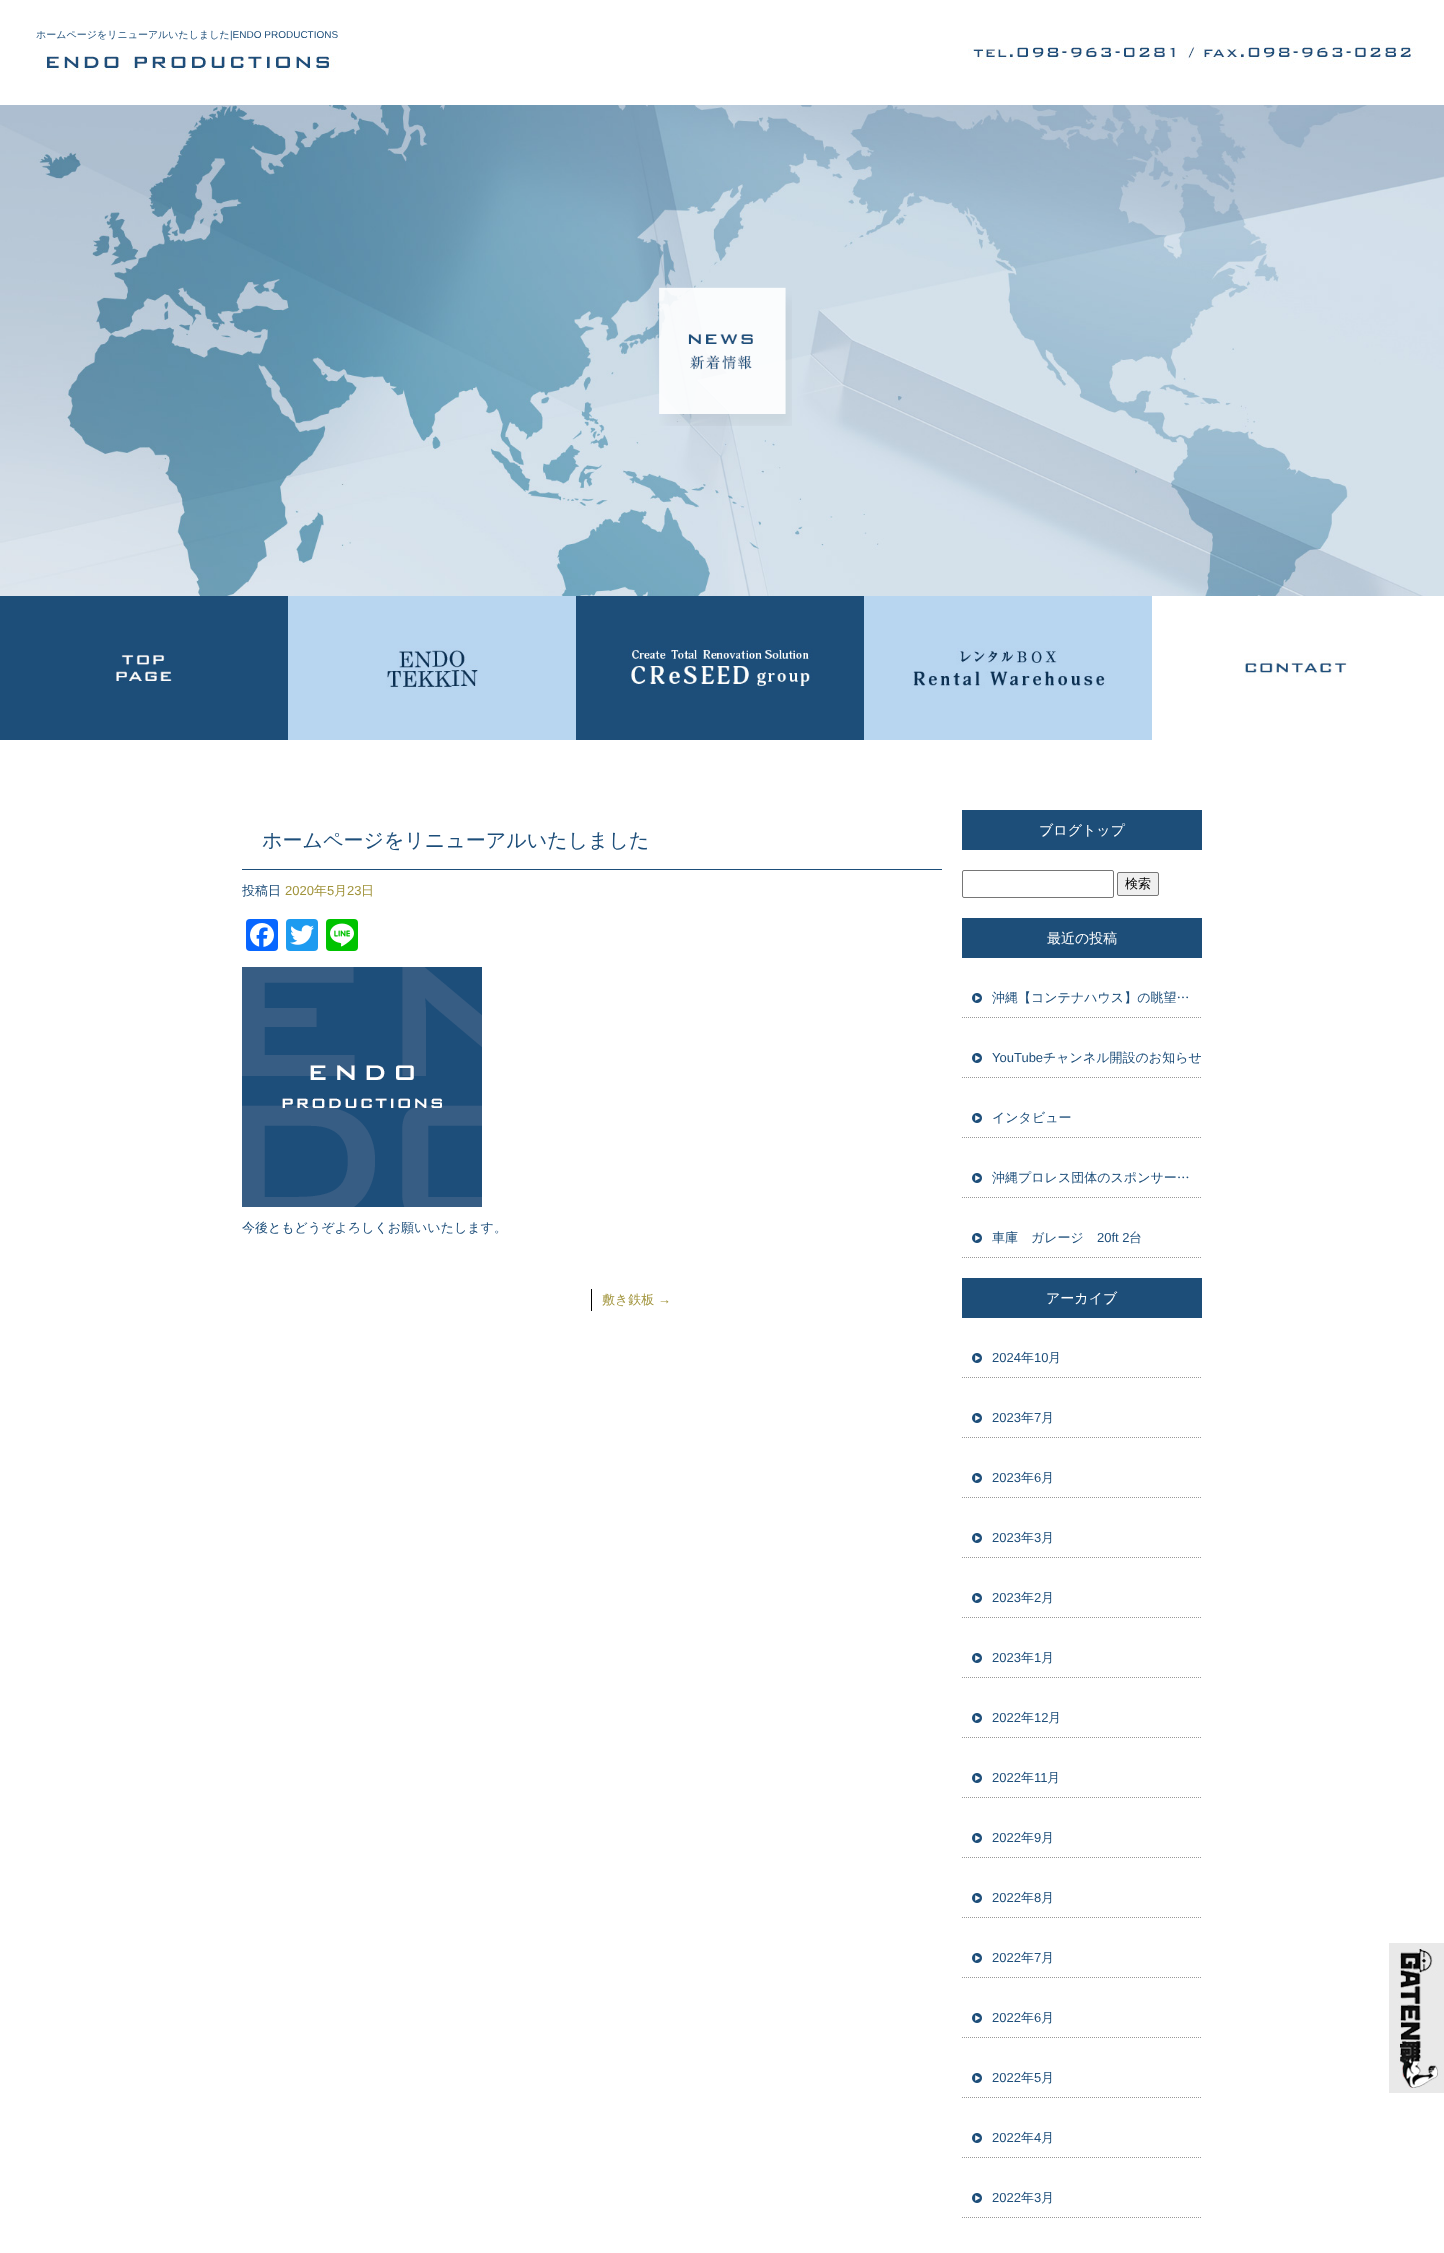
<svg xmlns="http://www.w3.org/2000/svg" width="1444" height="2253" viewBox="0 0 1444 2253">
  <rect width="100%" height="100%" fill="#ffffff"/>
  <image x="0" y="105" width="1444" height="491" href="img1.png"/>
  <image x="40" y="40" width="1376" height="32" href="img2.png"/>
  <text x="36" y="38" font-family="WenQuanYi Zen Hei" font-size="10" font-weight="500" fill="#1d4e7a">ホームページをリニューアルいたしました</text>
  <text x="230" y="38" font-family="Liberation Sans" font-size="10" fill="#1d4e7a">|ENDO PRODUCTIONS</text>
  <image x="0" y="596" width="288" height="144" href="img3.png"/>
  <image x="288" y="596" width="288" height="144" href="img4.png"/>
  <image x="576" y="596" width="288" height="144" href="img5.png"/>
  <image x="864" y="596" width="288" height="144" href="img6.png"/>
  <image x="1244" y="659" width="104" height="18" href="img7.png"/>
  <image x="659" y="287" width="133" height="139" href="img8.png"/>
  <rect x="242" y="869" width="700" height="1" fill="#1d4e7a"/>
  <text x="262" y="847" font-family="WenQuanYi Zen Hei" font-size="20" font-weight="500" fill="#1d4e7a">ホームページをリニューアルいたしました</text>
  <text x="242" y="895" font-family="WenQuanYi Zen Hei" font-size="13" font-weight="500" fill="#1d4e7a">投稿日</text>
  <text x="285" y="895" font-family="Liberation Sans" font-size="13" fill="#a0933a">2020</text>
  <text x="314" y="895" font-family="WenQuanYi Zen Hei" font-size="13" font-weight="500" fill="#a0933a">年</text>
  <text x="327" y="895" font-family="Liberation Sans" font-size="13" fill="#a0933a">5</text>
  <text x="334" y="895" font-family="WenQuanYi Zen Hei" font-size="13" font-weight="500" fill="#a0933a">月</text>
  <text x="347" y="895" font-family="Liberation Sans" font-size="13" fill="#a0933a">23</text>
  <text x="361" y="895" font-family="WenQuanYi Zen Hei" font-size="13" font-weight="500" fill="#a0933a">日</text>
  <rect x="246" y="919" width="32" height="32" rx="4" fill="#0866ff"/>
  <image x="250" y="923" width="24" height="24" href="img9.png"/>
  <rect x="286" y="919" width="32" height="32" rx="4" fill="#1d9bf0"/>
  <image x="290" y="925" width="24" height="20" href="img10.png"/>
  <rect x="326" y="919" width="32" height="32" rx="4" fill="#00c300"/>
  <image x="330" y="923" width="24" height="24" href="img11.png"/>
  <image x="242" y="967" width="240" height="240" href="img12.png"/>
  <text x="242" y="1232" font-family="WenQuanYi Zen Hei" font-size="13" font-weight="500" fill="#1d4e7a">今後ともどうぞよろしくお願いいたします。</text>
  <rect x="591" y="1289" width="1" height="22" fill="#000000"/>
  <text x="602" y="1304" font-family="WenQuanYi Zen Hei" font-size="13" font-weight="500" fill="#a0933a">敷き鉄板</text>
  <text x="658" y="1304" font-family="Liberation Sans" font-size="13" fill="#a0933a">→</text>
  <rect x="962" y="810" width="240" height="40" fill="#1d4e79"/>
  <text x="1039" y="835" font-family="WenQuanYi Zen Hei" font-size="14" font-weight="500" fill="#ffffff">ブログトップ</text>
  <rect x="962.5" y="870.5" width="151" height="27" rx="1.5" fill="none" stroke="#767676"/>
  <rect x="1117.5" y="872.5" width="41" height="23" rx="1.5" fill="#efefef" stroke="#767676"/>
  <text x="1125" y="888" font-family="WenQuanYi Zen Hei" font-size="13" font-weight="500" fill="#000000">検索</text>
  <rect x="962" y="918" width="240" height="40" fill="#1d4e79"/>
  <text x="1047" y="943" font-family="WenQuanYi Zen Hei" font-size="14" font-weight="500" fill="#ffffff">最近の投稿</text>
  <image x="962" y="993" width="239" height="25" href="img13.png"/>
  <text x="992" y="1002" font-family="WenQuanYi Zen Hei" font-size="13" font-weight="500" fill="#1d4e7a">沖縄【コンテナハウス】の眺望…</text>
  <image x="962" y="1053" width="239" height="25" href="img13.png"/>
  <text x="992" y="1062" font-family="Liberation Sans" font-size="13" fill="#1d4e7a">YouTube</text>
  <text x="1043" y="1062" font-family="WenQuanYi Zen Hei" font-size="13" font-weight="500" fill="#1d4e7a">チャンネル開設のお知らせ</text>
  <image x="962" y="1113" width="239" height="25" href="img13.png"/>
  <text x="992" y="1122" font-family="WenQuanYi Zen Hei" font-size="13" font-weight="500" fill="#1d4e7a">インタビュー</text>
  <image x="962" y="1173" width="239" height="25" href="img13.png"/>
  <text x="992" y="1182" font-family="WenQuanYi Zen Hei" font-size="13" font-weight="500" fill="#1d4e7a">沖縄プロレス団体のスポンサー…</text>
  <image x="962" y="1233" width="239" height="25" href="img13.png"/>
  <text x="992" y="1242" font-family="WenQuanYi Zen Hei" font-size="13" font-weight="500" fill="#1d4e7a">車庫　ガレージ</text>
  <text x="1097" y="1242" font-family="Liberation Sans" font-size="13" fill="#1d4e7a">20ft 2</text>
  <text x="1129" y="1242" font-family="WenQuanYi Zen Hei" font-size="13" font-weight="500" fill="#1d4e7a">台</text>
  <rect x="962" y="1278" width="240" height="40" fill="#1d4e79"/>
  <text x="1046" y="1303" font-family="WenQuanYi Zen Hei" font-size="14" font-weight="500" fill="#ffffff">アーカイブ</text>
  <image x="962" y="1353" width="239" height="25" href="img13.png"/>
  <text x="992" y="1362" font-family="Liberation Sans" font-size="13" fill="#1d4e7a">2024</text>
  <text x="1021" y="1362" font-family="WenQuanYi Zen Hei" font-size="13" font-weight="500" fill="#1d4e7a">年</text>
  <text x="1034" y="1362" font-family="Liberation Sans" font-size="13" fill="#1d4e7a">10</text>
  <text x="1048" y="1362" font-family="WenQuanYi Zen Hei" font-size="13" font-weight="500" fill="#1d4e7a">月</text>
  <image x="962" y="1413" width="239" height="25" href="img13.png"/>
  <text x="992" y="1422" font-family="Liberation Sans" font-size="13" fill="#1d4e7a">2023</text>
  <text x="1021" y="1422" font-family="WenQuanYi Zen Hei" font-size="13" font-weight="500" fill="#1d4e7a">年</text>
  <text x="1034" y="1422" font-family="Liberation Sans" font-size="13" fill="#1d4e7a">7</text>
  <text x="1041" y="1422" font-family="WenQuanYi Zen Hei" font-size="13" font-weight="500" fill="#1d4e7a">月</text>
  <image x="962" y="1473" width="239" height="25" href="img13.png"/>
  <text x="992" y="1482" font-family="Liberation Sans" font-size="13" fill="#1d4e7a">2023</text>
  <text x="1021" y="1482" font-family="WenQuanYi Zen Hei" font-size="13" font-weight="500" fill="#1d4e7a">年</text>
  <text x="1034" y="1482" font-family="Liberation Sans" font-size="13" fill="#1d4e7a">6</text>
  <text x="1041" y="1482" font-family="WenQuanYi Zen Hei" font-size="13" font-weight="500" fill="#1d4e7a">月</text>
  <image x="962" y="1533" width="239" height="25" href="img13.png"/>
  <text x="992" y="1542" font-family="Liberation Sans" font-size="13" fill="#1d4e7a">2023</text>
  <text x="1021" y="1542" font-family="WenQuanYi Zen Hei" font-size="13" font-weight="500" fill="#1d4e7a">年</text>
  <text x="1034" y="1542" font-family="Liberation Sans" font-size="13" fill="#1d4e7a">3</text>
  <text x="1041" y="1542" font-family="WenQuanYi Zen Hei" font-size="13" font-weight="500" fill="#1d4e7a">月</text>
  <image x="962" y="1593" width="239" height="25" href="img13.png"/>
  <text x="992" y="1602" font-family="Liberation Sans" font-size="13" fill="#1d4e7a">2023</text>
  <text x="1021" y="1602" font-family="WenQuanYi Zen Hei" font-size="13" font-weight="500" fill="#1d4e7a">年</text>
  <text x="1034" y="1602" font-family="Liberation Sans" font-size="13" fill="#1d4e7a">2</text>
  <text x="1041" y="1602" font-family="WenQuanYi Zen Hei" font-size="13" font-weight="500" fill="#1d4e7a">月</text>
  <image x="962" y="1653" width="239" height="25" href="img13.png"/>
  <text x="992" y="1662" font-family="Liberation Sans" font-size="13" fill="#1d4e7a">2023</text>
  <text x="1021" y="1662" font-family="WenQuanYi Zen Hei" font-size="13" font-weight="500" fill="#1d4e7a">年</text>
  <text x="1034" y="1662" font-family="Liberation Sans" font-size="13" fill="#1d4e7a">1</text>
  <text x="1041" y="1662" font-family="WenQuanYi Zen Hei" font-size="13" font-weight="500" fill="#1d4e7a">月</text>
  <image x="962" y="1713" width="239" height="25" href="img13.png"/>
  <text x="992" y="1722" font-family="Liberation Sans" font-size="13" fill="#1d4e7a">2022</text>
  <text x="1021" y="1722" font-family="WenQuanYi Zen Hei" font-size="13" font-weight="500" fill="#1d4e7a">年</text>
  <text x="1034" y="1722" font-family="Liberation Sans" font-size="13" fill="#1d4e7a">12</text>
  <text x="1048" y="1722" font-family="WenQuanYi Zen Hei" font-size="13" font-weight="500" fill="#1d4e7a">月</text>
  <image x="962" y="1773" width="239" height="25" href="img13.png"/>
  <text x="992" y="1782" font-family="Liberation Sans" font-size="13" fill="#1d4e7a">2022</text>
  <text x="1021" y="1782" font-family="WenQuanYi Zen Hei" font-size="13" font-weight="500" fill="#1d4e7a">年</text>
  <text x="1034" y="1782" font-family="Liberation Sans" font-size="13" fill="#1d4e7a">11</text>
  <text x="1047" y="1782" font-family="WenQuanYi Zen Hei" font-size="13" font-weight="500" fill="#1d4e7a">月</text>
  <image x="962" y="1833" width="239" height="25" href="img13.png"/>
  <text x="992" y="1842" font-family="Liberation Sans" font-size="13" fill="#1d4e7a">2022</text>
  <text x="1021" y="1842" font-family="WenQuanYi Zen Hei" font-size="13" font-weight="500" fill="#1d4e7a">年</text>
  <text x="1034" y="1842" font-family="Liberation Sans" font-size="13" fill="#1d4e7a">9</text>
  <text x="1041" y="1842" font-family="WenQuanYi Zen Hei" font-size="13" font-weight="500" fill="#1d4e7a">月</text>
  <image x="962" y="1893" width="239" height="25" href="img13.png"/>
  <text x="992" y="1902" font-family="Liberation Sans" font-size="13" fill="#1d4e7a">2022</text>
  <text x="1021" y="1902" font-family="WenQuanYi Zen Hei" font-size="13" font-weight="500" fill="#1d4e7a">年</text>
  <text x="1034" y="1902" font-family="Liberation Sans" font-size="13" fill="#1d4e7a">8</text>
  <text x="1041" y="1902" font-family="WenQuanYi Zen Hei" font-size="13" font-weight="500" fill="#1d4e7a">月</text>
  <image x="962" y="1953" width="239" height="25" href="img13.png"/>
  <text x="992" y="1962" font-family="Liberation Sans" font-size="13" fill="#1d4e7a">2022</text>
  <text x="1021" y="1962" font-family="WenQuanYi Zen Hei" font-size="13" font-weight="500" fill="#1d4e7a">年</text>
  <text x="1034" y="1962" font-family="Liberation Sans" font-size="13" fill="#1d4e7a">7</text>
  <text x="1041" y="1962" font-family="WenQuanYi Zen Hei" font-size="13" font-weight="500" fill="#1d4e7a">月</text>
  <image x="962" y="2013" width="239" height="25" href="img13.png"/>
  <text x="992" y="2022" font-family="Liberation Sans" font-size="13" fill="#1d4e7a">2022</text>
  <text x="1021" y="2022" font-family="WenQuanYi Zen Hei" font-size="13" font-weight="500" fill="#1d4e7a">年</text>
  <text x="1034" y="2022" font-family="Liberation Sans" font-size="13" fill="#1d4e7a">6</text>
  <text x="1041" y="2022" font-family="WenQuanYi Zen Hei" font-size="13" font-weight="500" fill="#1d4e7a">月</text>
  <image x="962" y="2073" width="239" height="25" href="img13.png"/>
  <text x="992" y="2082" font-family="Liberation Sans" font-size="13" fill="#1d4e7a">2022</text>
  <text x="1021" y="2082" font-family="WenQuanYi Zen Hei" font-size="13" font-weight="500" fill="#1d4e7a">年</text>
  <text x="1034" y="2082" font-family="Liberation Sans" font-size="13" fill="#1d4e7a">5</text>
  <text x="1041" y="2082" font-family="WenQuanYi Zen Hei" font-size="13" font-weight="500" fill="#1d4e7a">月</text>
  <image x="962" y="2133" width="239" height="25" href="img13.png"/>
  <text x="992" y="2142" font-family="Liberation Sans" font-size="13" fill="#1d4e7a">2022</text>
  <text x="1021" y="2142" font-family="WenQuanYi Zen Hei" font-size="13" font-weight="500" fill="#1d4e7a">年</text>
  <text x="1034" y="2142" font-family="Liberation Sans" font-size="13" fill="#1d4e7a">4</text>
  <text x="1041" y="2142" font-family="WenQuanYi Zen Hei" font-size="13" font-weight="500" fill="#1d4e7a">月</text>
  <image x="962" y="2193" width="239" height="25" href="img13.png"/>
  <text x="992" y="2202" font-family="Liberation Sans" font-size="13" fill="#1d4e7a">2022</text>
  <text x="1021" y="2202" font-family="WenQuanYi Zen Hei" font-size="13" font-weight="500" fill="#1d4e7a">年</text>
  <text x="1034" y="2202" font-family="Liberation Sans" font-size="13" fill="#1d4e7a">3</text>
  <text x="1041" y="2202" font-family="WenQuanYi Zen Hei" font-size="13" font-weight="500" fill="#1d4e7a">月</text>
  <image x="1389" y="1943" width="55" height="150" href="img14.png"/>
</svg>
